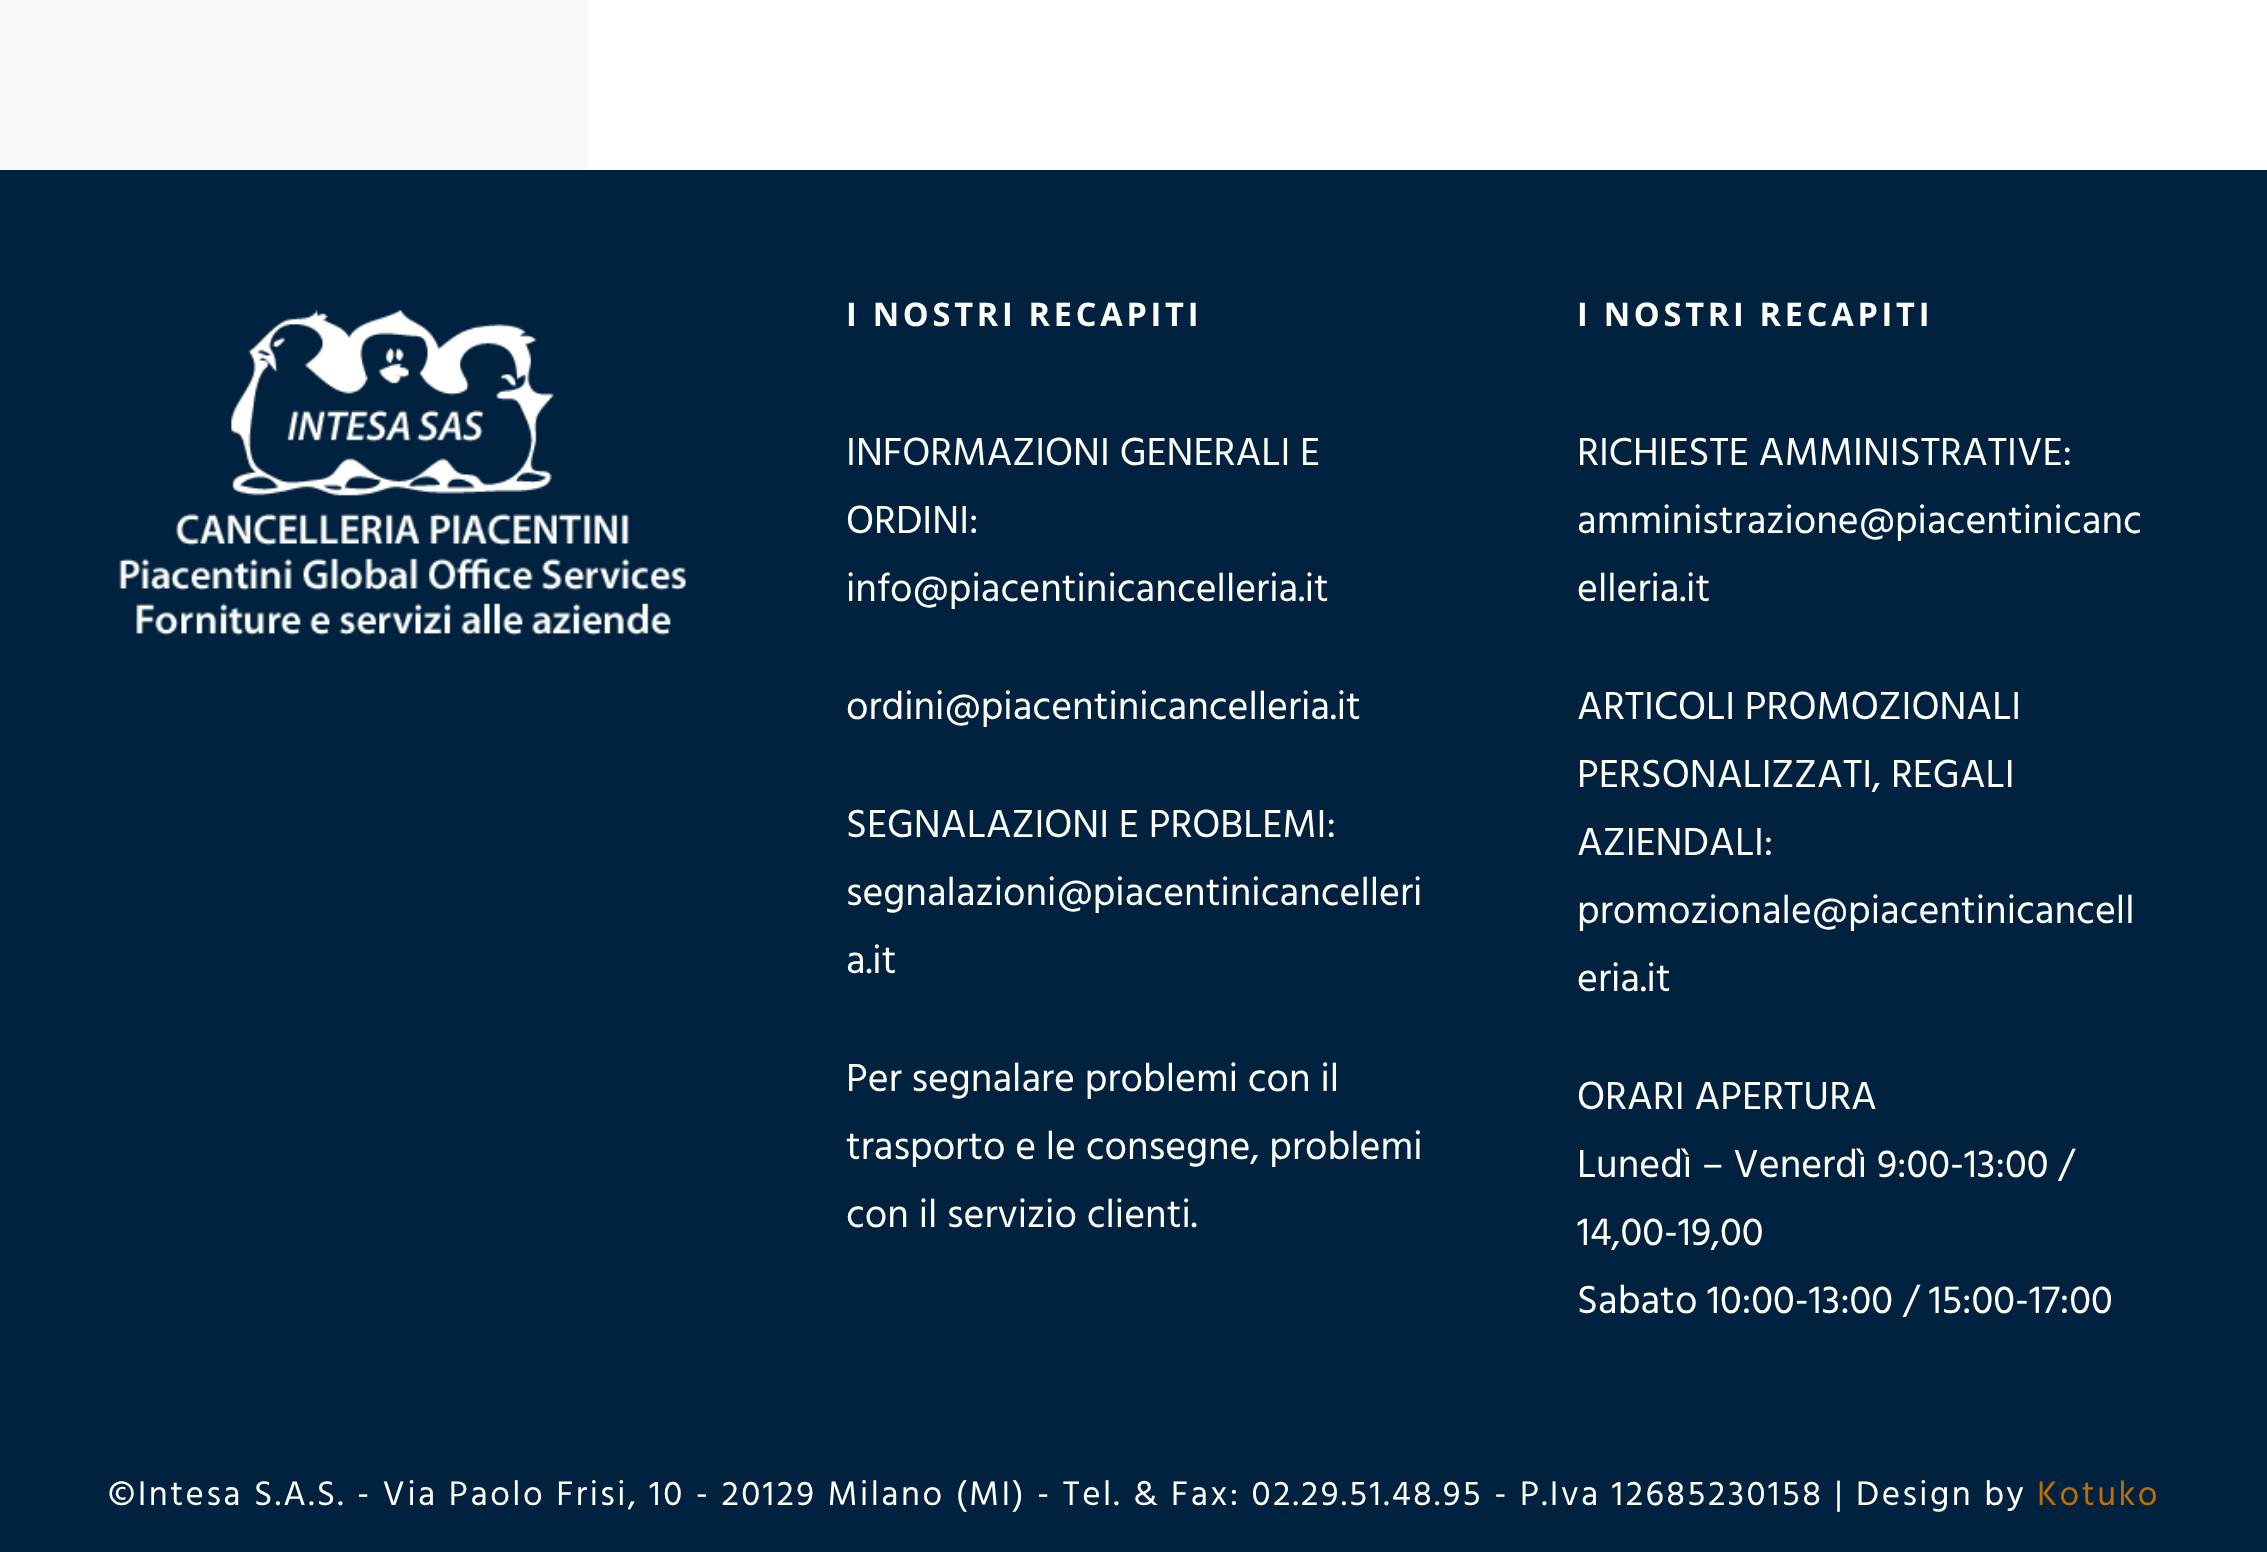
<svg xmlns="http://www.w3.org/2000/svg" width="2267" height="1552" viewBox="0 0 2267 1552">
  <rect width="100%" height="100%" fill="#ffffff"/>
  <rect x="0" y="0" width="588" height="170" fill="#f9f9f9"/>
  <rect x="0" y="170" width="2267" height="1382" fill="#00223e"/>
  <image x="119" y="310" width="567" height="326" href="img1.png"/>
  <text x="846" y="326" font-family="Open Sans" font-size="32.5" font-weight="bold" letter-spacing="3.75" fill="#ffffff">I NOSTRI RECAPITI</text>
  <text x="846" y="465" font-family="Hind" font-size="40" fill="#ffffff">INFORMAZIONI GENERALI E</text>
  <text x="846" y="533" font-family="Hind" font-size="40" fill="#ffffff">ORDINI:</text>
  <text x="846" y="601" font-family="Hind" font-size="40" fill="#ffffff">info@piacentinicancelleria.it</text>
  <text x="846" y="719" font-family="Hind" font-size="40" fill="#ffffff">ordini@piacentinicancelleria.it</text>
  <text x="846" y="837" font-family="Hind" font-size="40" fill="#ffffff">SEGNALAZIONI E PROBLEMI:</text>
  <text x="846" y="905" font-family="Hind" font-size="40" fill="#ffffff">segnalazioni@piacentinicancelleri</text>
  <text x="846" y="973" font-family="Hind" font-size="40" fill="#ffffff">a.it</text>
  <text x="846" y="1091" font-family="Hind" font-size="40" fill="#ffffff">Per segnalare problemi con il</text>
  <text x="846" y="1159" font-family="Hind" font-size="40" fill="#ffffff">trasporto e le consegne, problemi</text>
  <text x="846" y="1227" font-family="Hind" font-size="40" fill="#ffffff">con il servizio clienti.</text>
  <text x="1577" y="326" font-family="Open Sans" font-size="32.5" font-weight="bold" letter-spacing="3.75" fill="#ffffff">I NOSTRI RECAPITI</text>
  <text x="1577" y="465" font-family="Hind" font-size="40" fill="#ffffff">RICHIESTE AMMINISTRATIVE:</text>
  <text x="1577" y="533" font-family="Hind" font-size="40" fill="#ffffff">amministrazione@piacentinicanc</text>
  <text x="1577" y="601" font-family="Hind" font-size="40" fill="#ffffff">elleria.it</text>
  <text x="1577" y="719" font-family="Hind" font-size="40" fill="#ffffff">ARTICOLI PROMOZIONALI</text>
  <text x="1577" y="787" font-family="Hind" font-size="40" fill="#ffffff">PERSONALIZZATI, REGALI</text>
  <text x="1577" y="855" font-family="Hind" font-size="40" fill="#ffffff">AZIENDALI:</text>
  <text x="1577" y="923" font-family="Hind" font-size="40" fill="#ffffff">promozionale@piacentinicancell</text>
  <text x="1577" y="991" font-family="Hind" font-size="40" fill="#ffffff">eria.it</text>
  <text x="1577" y="1109" font-family="Hind" font-size="40" fill="#ffffff">ORARI APERTURA</text>
  <text x="1577" y="1177" font-family="Hind" font-size="40" fill="#ffffff">Lunedì – Venerdì 9:00-13:00 /</text>
  <text x="1577" y="1245" font-family="Hind" font-size="40" fill="#ffffff">14,00-19,00</text>
  <text x="1577" y="1313" font-family="Hind" font-size="40" fill="#ffffff">Sabato 10:00-13:00 / 15:00-17:00</text>
  <text x="108" y="1505" font-family="Hind" font-size="35" letter-spacing="2.5" fill="#ffffff">©Intesa S.A.S. - Via Paolo Frisi, 10 - 20129 Milano (MI) - Tel. &amp; Fax: 02.29.51.48.95 - P.Iva 12685230158 | Design by</text>
  <text x="2037" y="1505" font-family="Hind" font-size="35" letter-spacing="2.5" fill="#bf6f00">Kotuko</text>
</svg>
